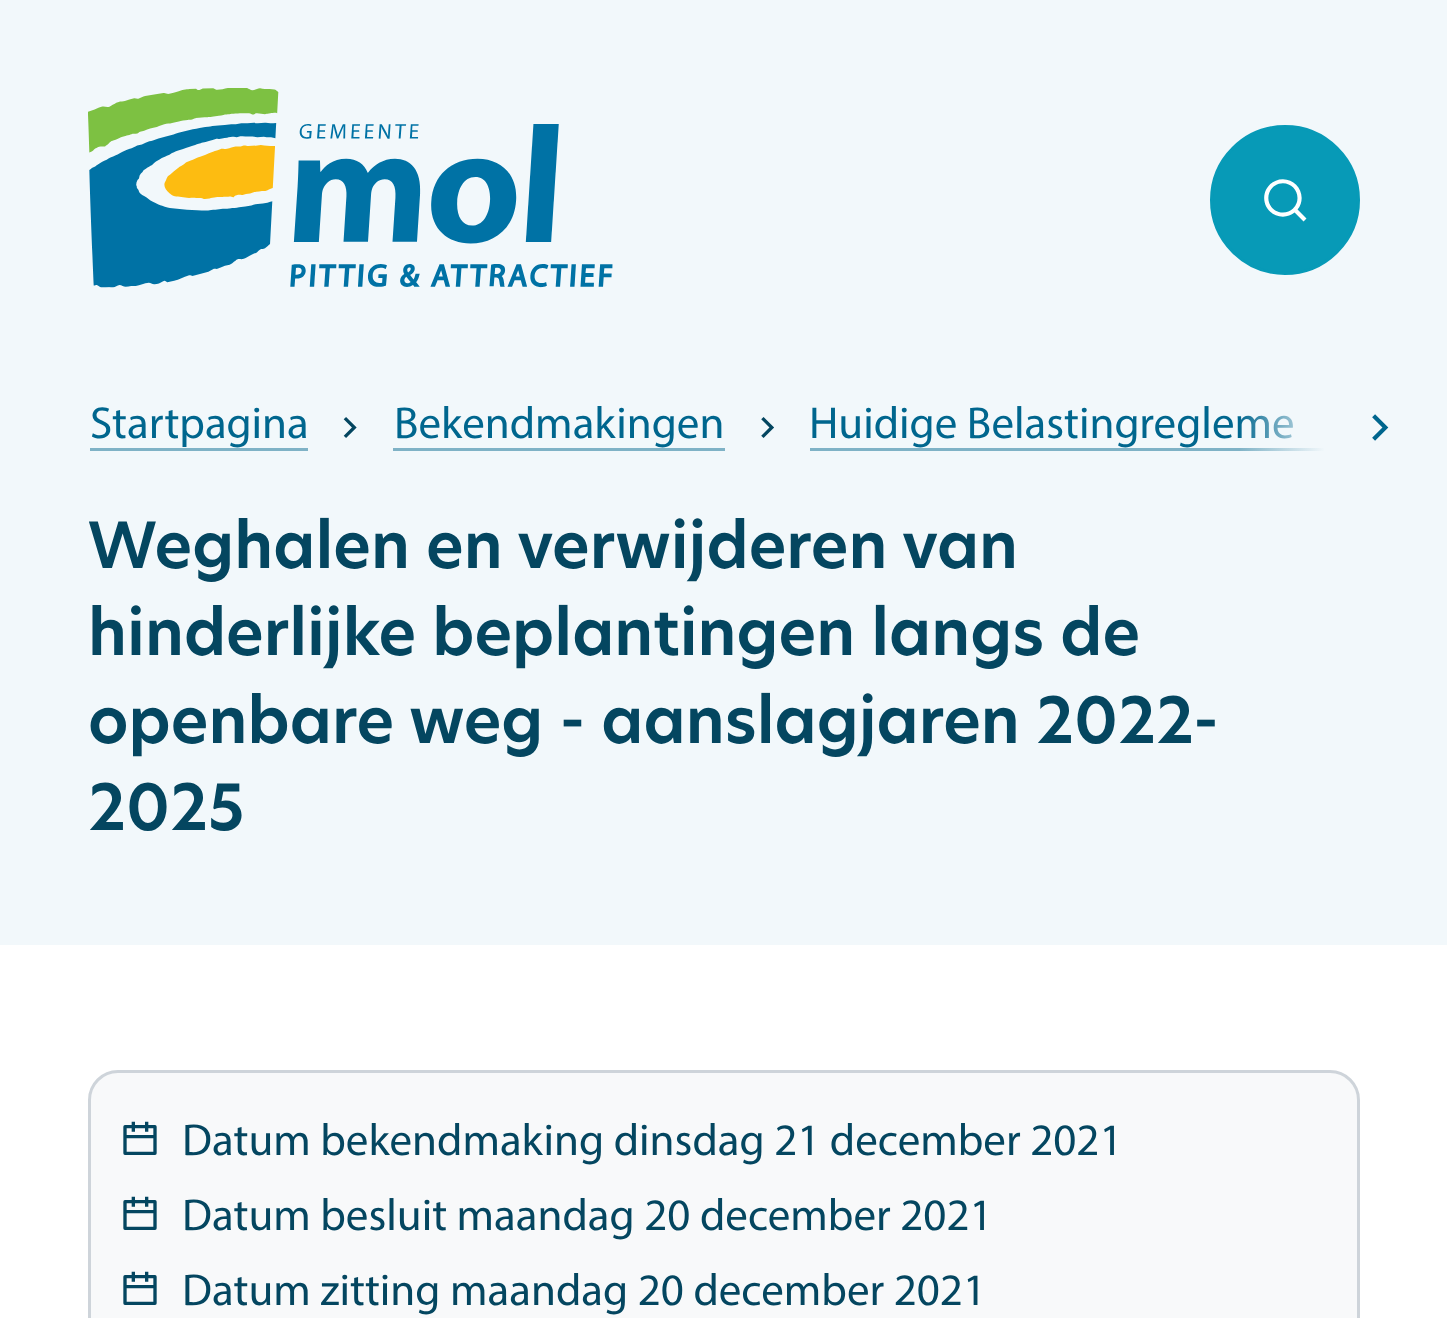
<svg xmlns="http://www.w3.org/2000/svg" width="1447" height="1318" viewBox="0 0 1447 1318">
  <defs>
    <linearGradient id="g1" gradientUnits="userSpaceOnUse" x1="1238" y1="423" x2="1325" y2="423"><stop offset="0" stop-color="#f2f8fb" stop-opacity="0"/><stop offset="1" stop-color="#f2f8fb"/></linearGradient>
  </defs>
  <rect width="100%" height="100%" fill="#ffffff"/>
  <rect x="0" y="0" width="1447" height="945" fill="#f2f8fb"/>
  <image x="88" y="88" width="525" height="200" href="img1.png"/>
  <circle cx="1285" cy="200" r="73.5" fill="#079ab7" stroke="#079ab7" stroke-width="3"/>
  <image x="1264" y="179" width="43" height="43" href="img2.png"/>
  <text x="90" y="438" font-family="Myriad" font-size="45" fill="#00668e">Startpagina</text>
  <rect x="90" y="448" width="218" height="3" fill="#7fb2c6"/>
  <image x="343" y="417" width="14" height="21" href="img3.png"/>
  <text x="394" y="438" font-family="Myriad" font-size="45" fill="#00668e">Bekendmakingen</text>
  <rect x="393" y="448" width="332" height="3" fill="#7fb2c6"/>
  <image x="761" y="417" width="13" height="21" href="img4.png"/>
  <text x="809" y="438" font-family="Myriad" font-size="45" fill="#00668e">Huidige Belastingregleme</text>
  <rect x="810" y="448" width="514" height="3" fill="#7fb2c6"/>
  <rect x="1240" y="415" width="84" height="36" fill="url(#g1)"/>
  <image x="1372" y="414" width="17" height="27" href="img5.png"/>
  <text x="88" y="568" font-family="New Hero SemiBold" font-size="62.5" font-weight="600" fill="#044660">Weghalen en verwijderen van</text>
  <text x="88" y="655" font-family="New Hero SemiBold" font-size="62.5" font-weight="600" fill="#044660">hinderlijke beplantingen langs de</text>
  <text x="88" y="743" font-family="New Hero SemiBold" font-size="62.5" font-weight="600" fill="#044660">openbare weg - aanslagjaren 2022-</text>
  <text x="88" y="830" font-family="New Hero SemiBold" font-size="62.5" font-weight="600" fill="#044660">2025</text>
  <rect x="89.5" y="1071.5" width="1269" height="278" rx="28.5" fill="#f8f9fa" stroke="#ced4da" stroke-width="3"/>
  <image x="123" y="1121" width="34" height="34" href="img6.png"/>
  <text x="182" y="1155" font-family="Myriad" font-size="45" fill="#044660">Datum bekendmaking dinsdag 21 december 2021</text>
  <image x="123" y="1196" width="34" height="34" href="img6.png"/>
  <text x="182" y="1230" font-family="Myriad" font-size="45" fill="#044660">Datum besluit maandag 20 december 2021</text>
  <image x="123" y="1271" width="34" height="34" href="img6.png"/>
  <text x="182" y="1305" font-family="Myriad" font-size="45" fill="#044660">Datum zitting maandag 20 december 2021</text>
</svg>
